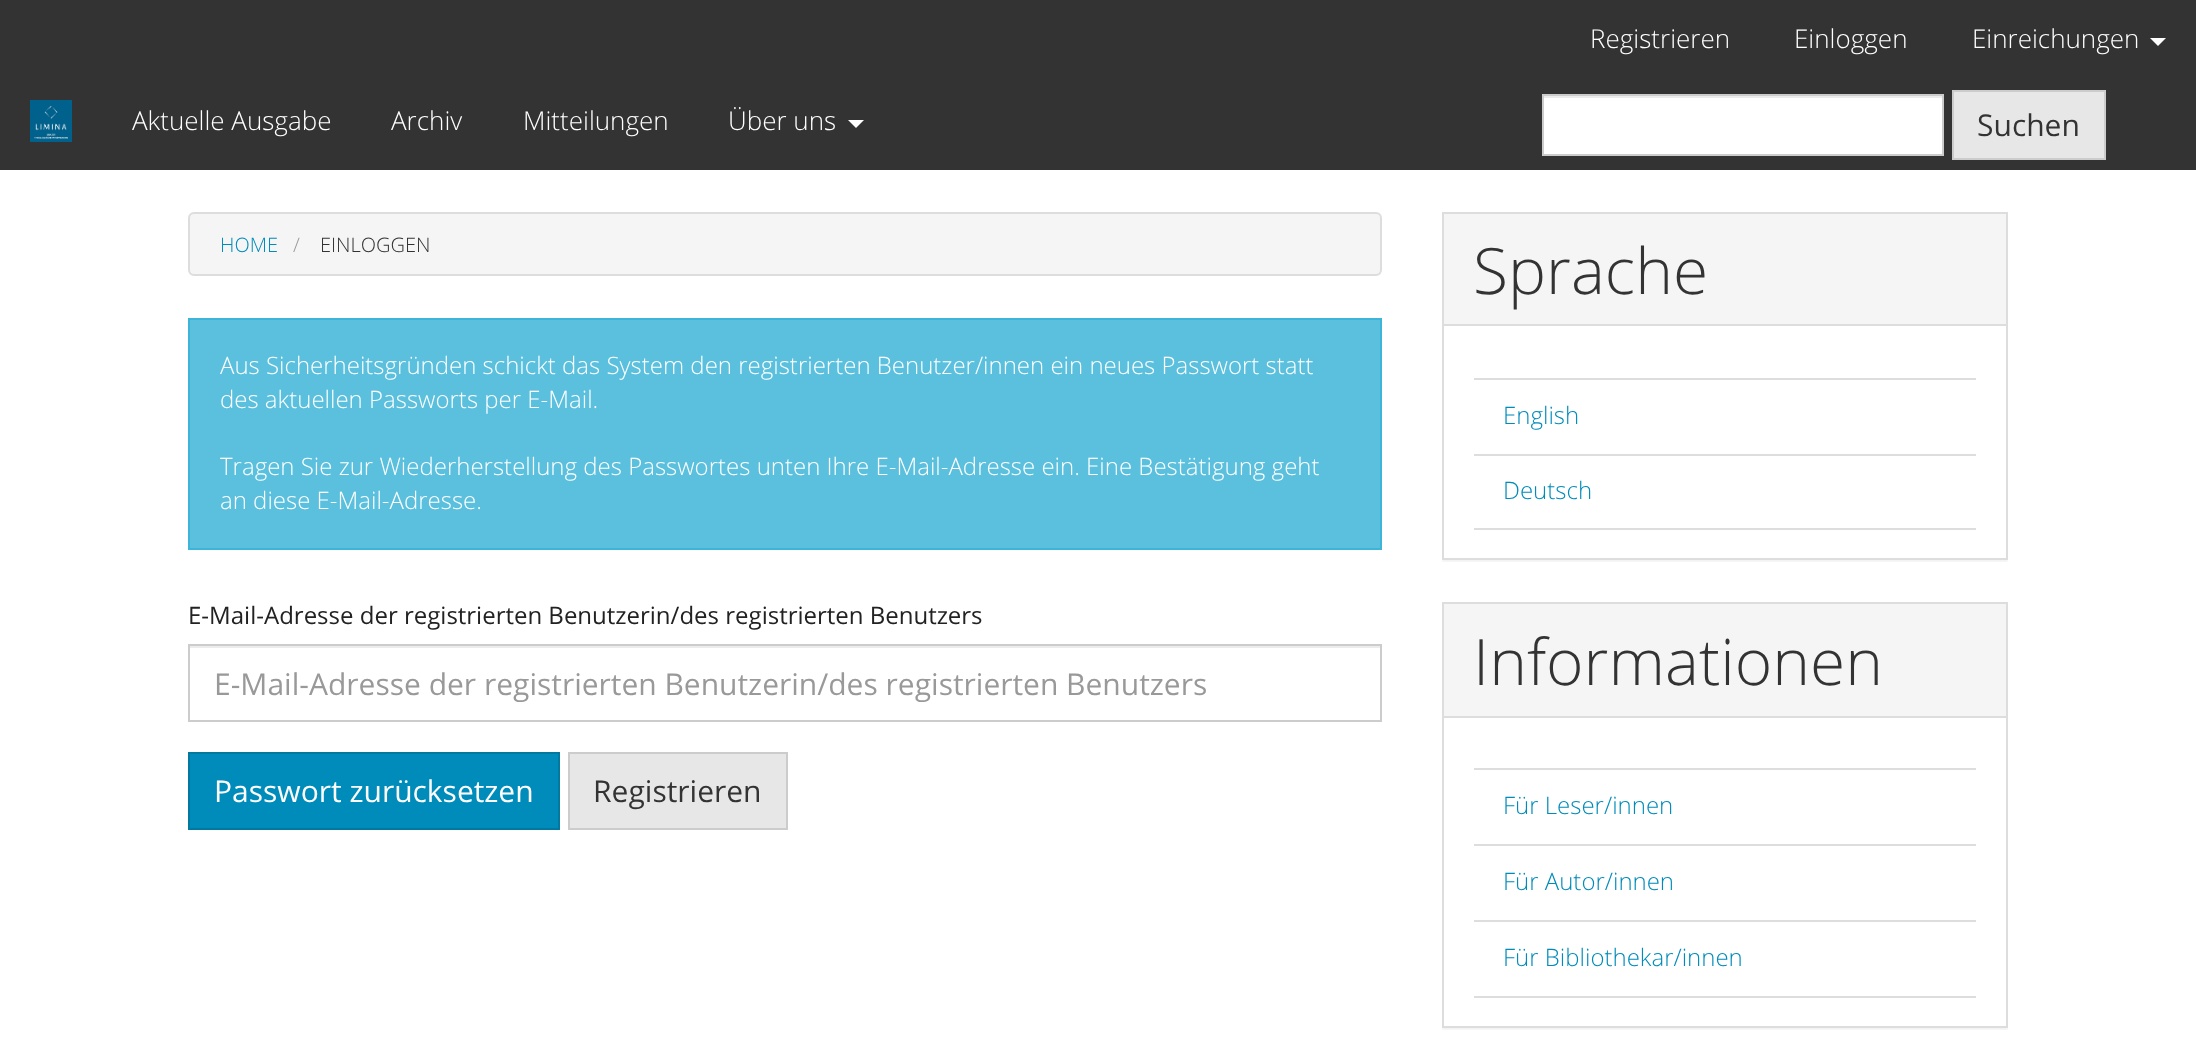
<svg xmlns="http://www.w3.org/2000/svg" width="2196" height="1043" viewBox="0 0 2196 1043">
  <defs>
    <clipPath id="clip1"><rect x="214" y="662" width="1142" height="40"/></clipPath>
    <clipPath id="clip2"><rect x="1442" y="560" width="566" height="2"/></clipPath>
    <filter id="blur1" x="-50%" y="-200%" width="200%" height="500%"><feGaussianBlur stdDeviation="1"/></filter>
    <clipPath id="clip3"><rect x="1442" y="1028" width="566" height="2"/></clipPath>
  </defs>
  <rect width="100%" height="100%" fill="#ffffff"/>
  <rect x="0" y="0" width="2196" height="170" fill="#333333"/>
  <text x="1590" y="48" font-family="Open Sans" font-size="26" font-weight="300" fill="#ffffff">Registrieren</text>
  <text x="1794" y="48" font-family="Open Sans" font-size="26" font-weight="300" fill="#ffffff">Einloggen</text>
  <text x="1972" y="48" font-family="Open Sans" font-size="26" font-weight="300" fill="#ffffff">Einreichungen</text>
  <path d="M2150 38H2166L2158 46Z" fill="#ffffff"/>
  <image x="30" y="100" width="42" height="42" href="img1.png"/>
  <text x="132" y="130" font-family="Open Sans" font-size="26" font-weight="300" fill="#ffffff">Aktuelle Ausgabe</text>
  <text x="391" y="130" font-family="Open Sans" font-size="26" font-weight="300" fill="#ffffff">Archiv</text>
  <text x="523" y="130" font-family="Open Sans" font-size="26" font-weight="300" fill="#ffffff">Mitteilungen</text>
  <text x="728" y="130" font-family="Open Sans" font-size="26" font-weight="300" fill="#ffffff">Über uns</text>
  <path d="M848 120H864L856 128Z" fill="#ffffff"/>
  <rect x="1544" y="98" width="398" height="56" fill="#ffffff"/>
  <rect x="1544" y="96" width="398" height="2" fill="#ececec"/>
  <rect x="1543" y="95" width="400" height="60" fill="none" stroke="#cccccc" stroke-width="2"/>
  <rect x="1953" y="91" width="152" height="68" fill="#e7e7e7" stroke="#cccccc" stroke-width="2"/>
  <text x="1977" y="136" font-family="Open Sans" font-size="30" fill="#333333">Suchen</text>
  <rect x="189" y="213" width="1192" height="62" rx="5" fill="#f5f5f5" stroke="#dddddd" stroke-width="2"/>
  <text x="220" y="252" font-family="Open Sans" font-size="20" font-weight="300" fill="#008cba">HOME</text>
  <text x="293" y="252" font-family="Open Sans" font-size="20" font-weight="300" fill="#999999">/</text>
  <text x="320" y="252" font-family="Open Sans" font-size="20" font-weight="300" fill="#333333">EINLOGGEN</text>
  <rect x="189" y="319" width="1192" height="230" fill="#5bc0de" stroke="#3db5d8" stroke-width="2"/>
  <text x="220" y="374" font-family="Open Sans" font-size="24" font-weight="300" fill="#ffffff">Aus Sicherheitsgründen schickt das System den registrierten Benutzer/innen ein neues Passwort statt</text>
  <text x="220" y="408" font-family="Open Sans" font-size="24" font-weight="300" fill="#ffffff">des aktuellen Passworts per E-Mail.</text>
  <text x="220" y="475" font-family="Open Sans" font-size="24" font-weight="300" fill="#ffffff">Tragen Sie zur Wiederherstellung des Passwortes unten Ihre E-Mail-Adresse ein. Eine Bestätigung geht</text>
  <text x="220" y="509" font-family="Open Sans" font-size="24" font-weight="300" fill="#ffffff">an diese E-Mail-Adresse.</text>
  <text x="188" y="624" font-family="Open Sans" font-size="24" fill="#222222">E-Mail-Adresse der registrierten Benutzerin/des registrierten Benutzers</text>
  <rect x="190" y="646" width="1190" height="2" fill="#ececec"/>
  <rect x="189" y="645" width="1192" height="76" fill="none" stroke="#cccccc" stroke-width="2"/>
  <g clip-path="url(#clip1)">
    <text x="214" y="695" font-family="Open Sans" font-size="30" fill="#999999">E-Mail-Adresse der registrierten Benutzerin/des registrierten Benutzers</text>
  </g>
  <rect x="189" y="753" width="370" height="76" fill="#008cba" stroke="#0079a1" stroke-width="2"/>
  <text x="214" y="802" font-family="Open Sans" font-size="30" fill="#ffffff">Passwort zurücksetzen</text>
  <rect x="569" y="753" width="218" height="76" fill="#e7e7e7" stroke="#cccccc" stroke-width="2"/>
  <text x="593" y="802" font-family="Open Sans" font-size="30" fill="#333333">Registrieren</text>
  <g clip-path="url(#clip2)">
    <rect x="1442" y="214" width="566" height="348" fill="#000000" fill-opacity="0.05" filter="url(#blur1)"/>
  </g>
  <rect x="1443" y="213" width="564" height="346" fill="none" stroke="#dddddd" stroke-width="2"/>
  <rect x="1444" y="214" width="562" height="110" fill="#f5f5f5"/>
  <rect x="1444" y="324" width="562" height="2" fill="#dddddd"/>
  <text x="1473" y="294" font-family="Open Sans" font-size="64" font-weight="300" fill="#333333">Sprache</text>
  <rect x="1474" y="378" width="502" height="2" fill="#dddddd"/>
  <rect x="1474" y="454" width="502" height="2" fill="#dddddd"/>
  <text x="1503" y="424" font-family="Open Sans" font-size="24" font-weight="300" fill="#008cba">English</text>
  <rect x="1474" y="528" width="502" height="2" fill="#dddddd"/>
  <text x="1503" y="499" font-family="Open Sans" font-size="24" font-weight="300" fill="#008cba">Deutsch</text>
  <g clip-path="url(#clip3)">
    <rect x="1442" y="604" width="566" height="426" fill="#000000" fill-opacity="0.05" filter="url(#blur1)"/>
  </g>
  <rect x="1443" y="603" width="564" height="424" fill="none" stroke="#dddddd" stroke-width="2"/>
  <rect x="1444" y="604" width="562" height="112" fill="#f5f5f5"/>
  <rect x="1444" y="716" width="562" height="2" fill="#dddddd"/>
  <text x="1473" y="685" font-family="Open Sans" font-size="64" font-weight="300" fill="#333333">Informationen</text>
  <rect x="1474" y="768" width="502" height="2" fill="#dddddd"/>
  <rect x="1474" y="844" width="502" height="2" fill="#dddddd"/>
  <text x="1503" y="814" font-family="Open Sans" font-size="24" font-weight="300" fill="#008cba">Für Leser/innen</text>
  <rect x="1474" y="920" width="502" height="2" fill="#dddddd"/>
  <text x="1503" y="890" font-family="Open Sans" font-size="24" font-weight="300" fill="#008cba">Für Autor/innen</text>
  <rect x="1474" y="996" width="502" height="2" fill="#dddddd"/>
  <text x="1503" y="966" font-family="Open Sans" font-size="24" font-weight="300" fill="#008cba">Für Bibliothekar/innen</text>
</svg>
